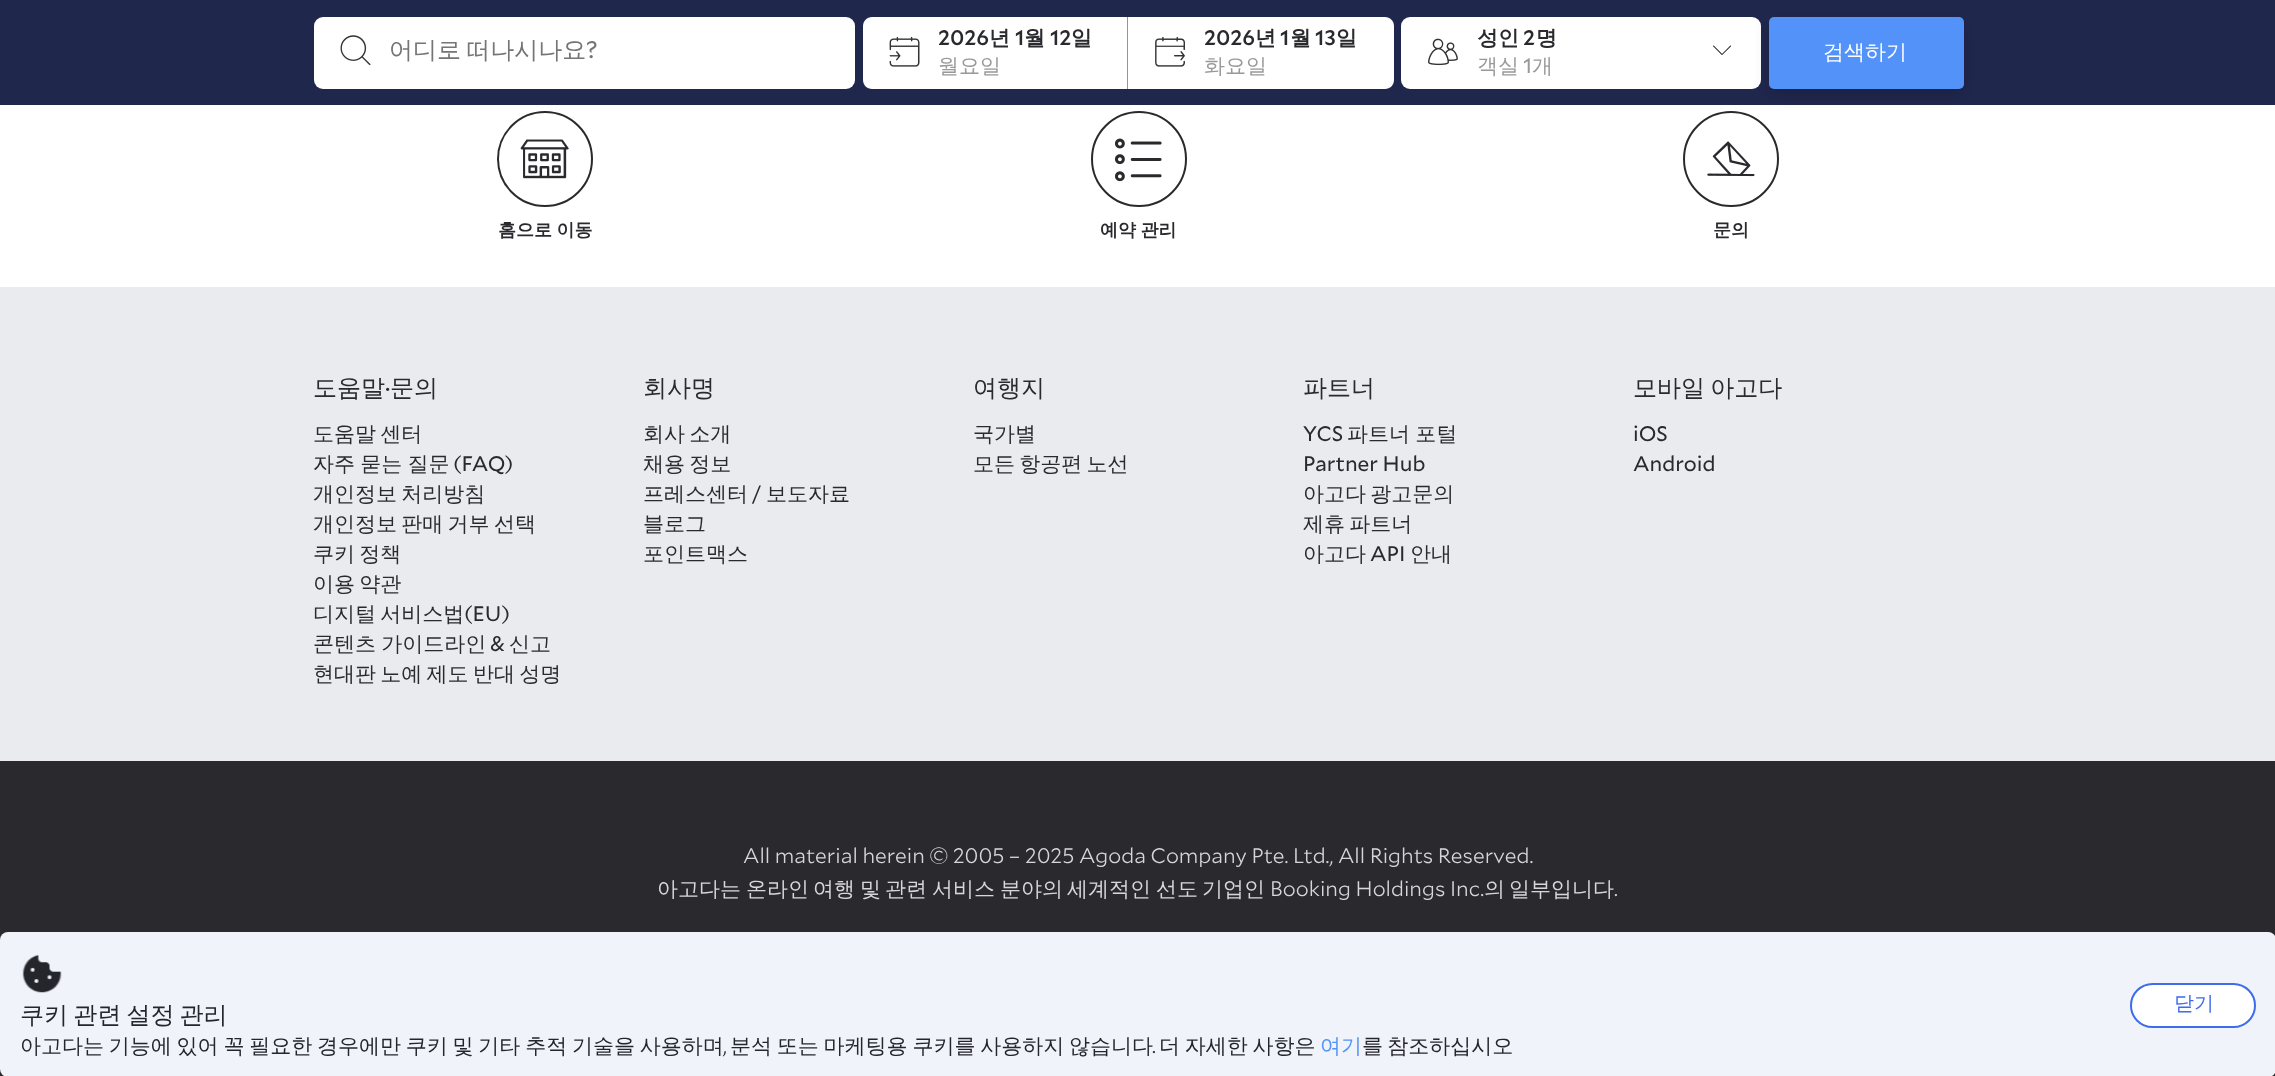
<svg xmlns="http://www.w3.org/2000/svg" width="2275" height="1076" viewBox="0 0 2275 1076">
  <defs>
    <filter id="blur1" x="-50%" y="-200%" width="200%" height="500%"><feGaussianBlur stdDeviation="7.5"/></filter>
  </defs>
  <rect width="100%" height="100%" fill="#ffffff"/>
  <rect x="0" y="0" width="2275" height="105" fill="#20274d"/>
  <rect x="314" y="17" width="541" height="72" rx="9" fill="#ffffff"/>
  <image x="340" y="35" width="31" height="31" href="img1.png"/>
  <text x="389" y="58" word-spacing="-2" font-family="WenQuanYi Zen Hei" font-size="24" font-weight="500" fill="#757575">어디로 떠나시나요</text>
  <text x="586" y="58" font-family="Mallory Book" font-size="24" fill="#757575">?</text>
  <path d="M872 17H1128V89H872C867 89 863 85 863 80V26C863 21 867 17 872 17Z" fill="#ffffff"/>
  <rect x="1127" y="17" width="1" height="72" fill="#90949c"/>
  <image x="889" y="36" width="31" height="31" href="img2.png"/>
  <text x="938" y="45" font-family="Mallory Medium" font-size="21" font-weight="500" fill="#2a2a2e">2026</text>
  <text x="989" y="45" font-family="WenQuanYi Zen Hei" font-size="21" font-weight="bold" fill="#2a2a2e">년</text>
  <text x="1015" y="45" font-family="Mallory Medium" font-size="21" font-weight="500" fill="#2a2a2e">1</text>
  <text x="1024" y="45" font-family="WenQuanYi Zen Hei" font-size="21" font-weight="bold" fill="#2a2a2e">월</text>
  <text x="1050" y="45" font-family="Mallory Medium" font-size="21" font-weight="500" fill="#2a2a2e">12</text>
  <text x="1071" y="45" font-family="WenQuanYi Zen Hei" font-size="21" font-weight="bold" fill="#2a2a2e">일</text>
  <text x="938" y="73" font-family="WenQuanYi Zen Hei" font-size="21" font-weight="500" fill="#999999">월요일</text>
  <path d="M1128 17H1385C1390 17 1394 21 1394 26V80C1394 85 1390 89 1385 89H1128Z" fill="#ffffff"/>
  <image x="1155" y="36" width="30" height="31" href="img3.png"/>
  <text x="1204" y="45" font-family="Mallory Medium" font-size="21" font-weight="500" fill="#2a2a2e">2026</text>
  <text x="1255" y="45" font-family="WenQuanYi Zen Hei" font-size="21" font-weight="bold" fill="#2a2a2e">년</text>
  <text x="1280" y="45" font-family="Mallory Medium" font-size="21" font-weight="500" fill="#2a2a2e">1</text>
  <text x="1290" y="45" font-family="WenQuanYi Zen Hei" font-size="21" font-weight="bold" fill="#2a2a2e">월</text>
  <text x="1315" y="45" font-family="Mallory Medium" font-size="21" font-weight="500" fill="#2a2a2e">13</text>
  <text x="1336" y="45" font-family="WenQuanYi Zen Hei" font-size="21" font-weight="bold" fill="#2a2a2e">일</text>
  <text x="1204" y="73" font-family="WenQuanYi Zen Hei" font-size="21" font-weight="500" fill="#999999">화요일</text>
  <rect x="1401" y="17" width="360" height="72" rx="9" fill="#ffffff"/>
  <image x="1428" y="38" width="30" height="28" href="img4.png"/>
  <text x="1477" y="45" font-family="WenQuanYi Zen Hei" font-size="21" font-weight="bold" fill="#2a2a2e">성인</text>
  <text x="1523" y="45" font-family="Mallory Medium" font-size="21" font-weight="500" fill="#2a2a2e">2</text>
  <text x="1536" y="45" font-family="WenQuanYi Zen Hei" font-size="21" font-weight="bold" fill="#2a2a2e">명</text>
  <image x="1713" y="45" width="18" height="10" href="img5.png"/>
  <text x="1477" y="73" font-family="WenQuanYi Zen Hei" font-size="21" font-weight="500" fill="#999999">객실</text>
  <text x="1523" y="73" font-family="Mallory Book" font-size="21" fill="#999999">1</text>
  <text x="1532" y="73" font-family="WenQuanYi Zen Hei" font-size="21" font-weight="500" fill="#999999">개</text>
  <circle cx="1731" cy="159" r="47" fill="none" stroke="#2a2a2e" stroke-width="2"/>
  <rect x="1769" y="23" width="195" height="72" rx="5" fill="#000000" fill-opacity="0.15" filter="url(#blur1)"/>
  <rect x="1769" y="17" width="195" height="72" rx="5" fill="#5392f9"/>
  <text x="1823" y="59" font-family="WenQuanYi Zen Hei" font-size="21" font-weight="500" fill="#ffffff">검색하기</text>
  <circle cx="545" cy="159" r="47" fill="none" stroke="#2a2a2e" stroke-width="2"/>
  <image x="520" y="139" width="49" height="40" href="img6.png"/>
  <text x="498" y="236" word-spacing="-1" font-family="WenQuanYi Zen Hei" font-size="18" font-weight="bold" fill="#2a2a2e">홈으로 이동</text>
  <circle cx="1139" cy="159" r="47" fill="none" stroke="#2a2a2e" stroke-width="2"/>
  <image x="1115" y="138" width="47" height="44" href="img7.png"/>
  <text x="1100" y="236" word-spacing="-1" font-family="WenQuanYi Zen Hei" font-size="18" font-weight="bold" fill="#2a2a2e">예약 관리</text>
  <image x="1707" y="141" width="48" height="36" href="img8.png"/>
  <text x="1713" y="236" font-family="WenQuanYi Zen Hei" font-size="18" font-weight="bold" fill="#2a2a2e">문의</text>
  <rect x="0" y="287" width="2275" height="474" fill="#e9ebee"/>
  <text x="313" y="396" font-family="WenQuanYi Zen Hei" font-size="24" font-weight="500" fill="#2a2a2e">도움말</text>
  <text x="385" y="396" font-family="Mallory Book" font-size="24" fill="#2a2a2e">·</text>
  <text x="390" y="396" font-family="WenQuanYi Zen Hei" font-size="24" font-weight="500" fill="#2a2a2e">문의</text>
  <text x="313" y="441" word-spacing="-2" font-family="WenQuanYi Zen Hei" font-size="21" font-weight="500" fill="#2a2a2e">도움말 센터</text>
  <text x="313" y="471" word-spacing="-1" font-family="WenQuanYi Zen Hei" font-size="21" font-weight="500" fill="#2a2a2e">자주 묻는 질문</text>
  <text x="453" y="471" font-family="Mallory Book" font-size="21" fill="#2a2a2e">(FAQ)</text>
  <text x="313" y="501" word-spacing="-2" font-family="WenQuanYi Zen Hei" font-size="21" font-weight="500" fill="#2a2a2e">개인정보 처리방침</text>
  <text x="313" y="531" word-spacing="-2" font-family="WenQuanYi Zen Hei" font-size="21" font-weight="500" fill="#2a2a2e">개인정보 판매 거부 선택</text>
  <text x="313" y="561" word-spacing="-2" font-family="WenQuanYi Zen Hei" font-size="21" font-weight="500" fill="#2a2a2e">쿠키 정책</text>
  <text x="313" y="591" word-spacing="-2" font-family="WenQuanYi Zen Hei" font-size="21" font-weight="500" fill="#2a2a2e">이용 약관</text>
  <text x="313" y="621" word-spacing="-2" font-family="WenQuanYi Zen Hei" font-size="21" font-weight="500" fill="#2a2a2e">디지털 서비스법</text>
  <text x="464" y="621" font-family="Mallory Book" font-size="21" fill="#2a2a2e">(EU)</text>
  <text x="313" y="651" word-spacing="-1" font-family="WenQuanYi Zen Hei" font-size="21" font-weight="500" fill="#2a2a2e">콘텐츠 가이드라인</text>
  <text x="490" y="651" font-family="Mallory Book" font-size="21" fill="#2a2a2e">&amp;</text>
  <text x="509" y="651" font-family="WenQuanYi Zen Hei" font-size="21" font-weight="500" fill="#2a2a2e">신고</text>
  <text x="313" y="681" word-spacing="-2" font-family="WenQuanYi Zen Hei" font-size="21" font-weight="500" fill="#2a2a2e">현대판 노예 제도 반대 성명</text>
  <text x="643" y="396" font-family="WenQuanYi Zen Hei" font-size="24" font-weight="500" fill="#2a2a2e">회사명</text>
  <text x="643" y="441" word-spacing="-2" font-family="WenQuanYi Zen Hei" font-size="21" font-weight="500" fill="#2a2a2e">회사 소개</text>
  <text x="643" y="471" word-spacing="-2" font-family="WenQuanYi Zen Hei" font-size="21" font-weight="500" fill="#2a2a2e">채용 정보</text>
  <text x="643" y="501" font-family="WenQuanYi Zen Hei" font-size="21" font-weight="500" fill="#2a2a2e">프레스센터</text>
  <text x="752" y="501" font-family="Mallory Book" font-size="21" fill="#2a2a2e">/</text>
  <text x="766" y="501" font-family="WenQuanYi Zen Hei" font-size="21" font-weight="500" fill="#2a2a2e">보도자료</text>
  <text x="643" y="531" font-family="WenQuanYi Zen Hei" font-size="21" font-weight="500" fill="#2a2a2e">블로그</text>
  <text x="643" y="561" font-family="WenQuanYi Zen Hei" font-size="21" font-weight="500" fill="#2a2a2e">포인트맥스</text>
  <text x="973" y="396" font-family="WenQuanYi Zen Hei" font-size="24" font-weight="500" fill="#2a2a2e">여행지</text>
  <text x="973" y="441" font-family="WenQuanYi Zen Hei" font-size="21" font-weight="500" fill="#2a2a2e">국가별</text>
  <text x="973" y="471" word-spacing="-2" font-family="WenQuanYi Zen Hei" font-size="21" font-weight="500" fill="#2a2a2e">모든 항공편 노선</text>
  <text x="1303" y="396" font-family="WenQuanYi Zen Hei" font-size="24" font-weight="500" fill="#2a2a2e">파트너</text>
  <text x="1303" y="441" font-family="Mallory Book" font-size="21" fill="#2a2a2e">YCS</text>
  <text x="1347" y="441" word-spacing="-1" font-family="WenQuanYi Zen Hei" font-size="21" font-weight="500" fill="#2a2a2e">파트너 포털</text>
  <text x="1303" y="471" font-family="Mallory Book" font-size="21" fill="#2a2a2e">Partner Hub</text>
  <text x="1303" y="501" word-spacing="-2" font-family="WenQuanYi Zen Hei" font-size="21" font-weight="500" fill="#2a2a2e">아고다 광고문의</text>
  <text x="1303" y="531" word-spacing="-2" font-family="WenQuanYi Zen Hei" font-size="21" font-weight="500" fill="#2a2a2e">제휴 파트너</text>
  <text x="1303" y="561" font-family="WenQuanYi Zen Hei" font-size="21" font-weight="500" fill="#2a2a2e">아고다</text>
  <text x="1370" y="561" font-family="Mallory Book" font-size="21" fill="#2a2a2e">API</text>
  <text x="1410" y="561" font-family="WenQuanYi Zen Hei" font-size="21" font-weight="500" fill="#2a2a2e">안내</text>
  <text x="1633" y="396" word-spacing="-2" font-family="WenQuanYi Zen Hei" font-size="24" font-weight="500" fill="#2a2a2e">모바일 아고다</text>
  <text x="1633" y="441" font-family="Mallory Book" font-size="21" fill="#2a2a2e">iOS</text>
  <text x="1633" y="471" font-family="Mallory Book" font-size="21" fill="#2a2a2e">Android</text>
  <rect x="0" y="761" width="2275" height="315" fill="#2a2a2e"/>
  <text x="743" y="863" font-family="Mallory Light" font-size="21" font-weight="300" fill="#d7d7db">All material herein © 2005 – 2025 Agoda Company Pte. Ltd., All Rights Reserved.</text>
  <text x="657" y="896" font-family="WenQuanYi Zen Hei" font-size="21" font-weight="500" fill="#d7d7db">아고다는</text>
  <text x="746" y="896" font-family="WenQuanYi Zen Hei" font-size="21" font-weight="500" fill="#d7d7db">온라인</text>
  <text x="813" y="896" font-family="WenQuanYi Zen Hei" font-size="21" font-weight="500" fill="#d7d7db">여행</text>
  <text x="860" y="896" font-family="WenQuanYi Zen Hei" font-size="21" font-weight="500" fill="#d7d7db">및</text>
  <text x="885" y="896" font-family="WenQuanYi Zen Hei" font-size="21" font-weight="500" fill="#d7d7db">관련</text>
  <text x="932" y="896" font-family="WenQuanYi Zen Hei" font-size="21" font-weight="500" fill="#d7d7db">서비스</text>
  <text x="1000" y="896" font-family="WenQuanYi Zen Hei" font-size="21" font-weight="500" fill="#d7d7db">분야의</text>
  <text x="1067" y="896" font-family="WenQuanYi Zen Hei" font-size="21" font-weight="500" fill="#d7d7db">세계적인</text>
  <text x="1156" y="896" font-family="WenQuanYi Zen Hei" font-size="21" font-weight="500" fill="#d7d7db">선도</text>
  <text x="1202" y="896" font-family="WenQuanYi Zen Hei" font-size="21" font-weight="500" fill="#d7d7db">기업인</text>
  <text x="1270" y="896" font-family="Mallory Light" font-size="21" font-weight="300" fill="#d7d7db">Booking Holdings Inc.</text>
  <text x="1484" y="896" font-family="WenQuanYi Zen Hei" font-size="21" font-weight="500" fill="#d7d7db">의</text>
  <text x="1509" y="896" font-family="WenQuanYi Zen Hei" font-size="21" font-weight="500" fill="#d7d7db">일부입니다</text>
  <text x="1614" y="896" font-family="Mallory Light" font-size="21" font-weight="300" fill="#d7d7db">.</text>
  <rect x="0" y="932" width="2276" height="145" rx="8" fill="#f0f3f9"/>
  <image x="22" y="954" width="40" height="39" href="img9.png"/>
  <text x="20" y="1023" word-spacing="-2" font-family="WenQuanYi Zen Hei" font-size="24" font-weight="500" fill="#24262c">쿠키 관련 설정 관리</text>
  <text x="20" y="1053" word-spacing="-1.5" font-family="WenQuanYi Zen Hei" font-size="21" font-weight="500" fill="#24262c">아고다는 기능에 있어 꼭 필요한 경우에만 쿠키 및 기타 추적 기술을 사용하며</text>
  <text x="723" y="1053" font-family="Mallory Light" font-size="21" font-weight="300" fill="#24262c">,</text>
  <text x="730" y="1053" word-spacing="-1.5" font-family="WenQuanYi Zen Hei" font-size="21" font-weight="500" fill="#24262c">분석 또는 마케팅용 쿠키를 사용하지 않습니다</text>
  <text x="1152" y="1053" font-family="Mallory Light" font-size="21" font-weight="300" fill="#24262c">.</text>
  <text x="1159" y="1053" word-spacing="-1.5" font-family="WenQuanYi Zen Hei" font-size="21" font-weight="500" fill="#24262c">더 자세한 사항은</text>
  <text x="1320" y="1053" font-family="WenQuanYi Zen Hei" font-size="21" font-weight="500" fill="#5392f9">여기</text>
  <text x="1362" y="1053" word-spacing="-2" font-family="WenQuanYi Zen Hei" font-size="21" font-weight="500" fill="#24262c">를 참조하십시오</text>
  <rect x="2131" y="984" width="124" height="43" rx="21.5" fill="#ffffff" stroke="#3e6cea" stroke-width="2"/>
  <text x="2174" y="1010" font-family="WenQuanYi Zen Hei" font-size="20" font-weight="500" fill="#3e6cea">닫기</text>
</svg>
